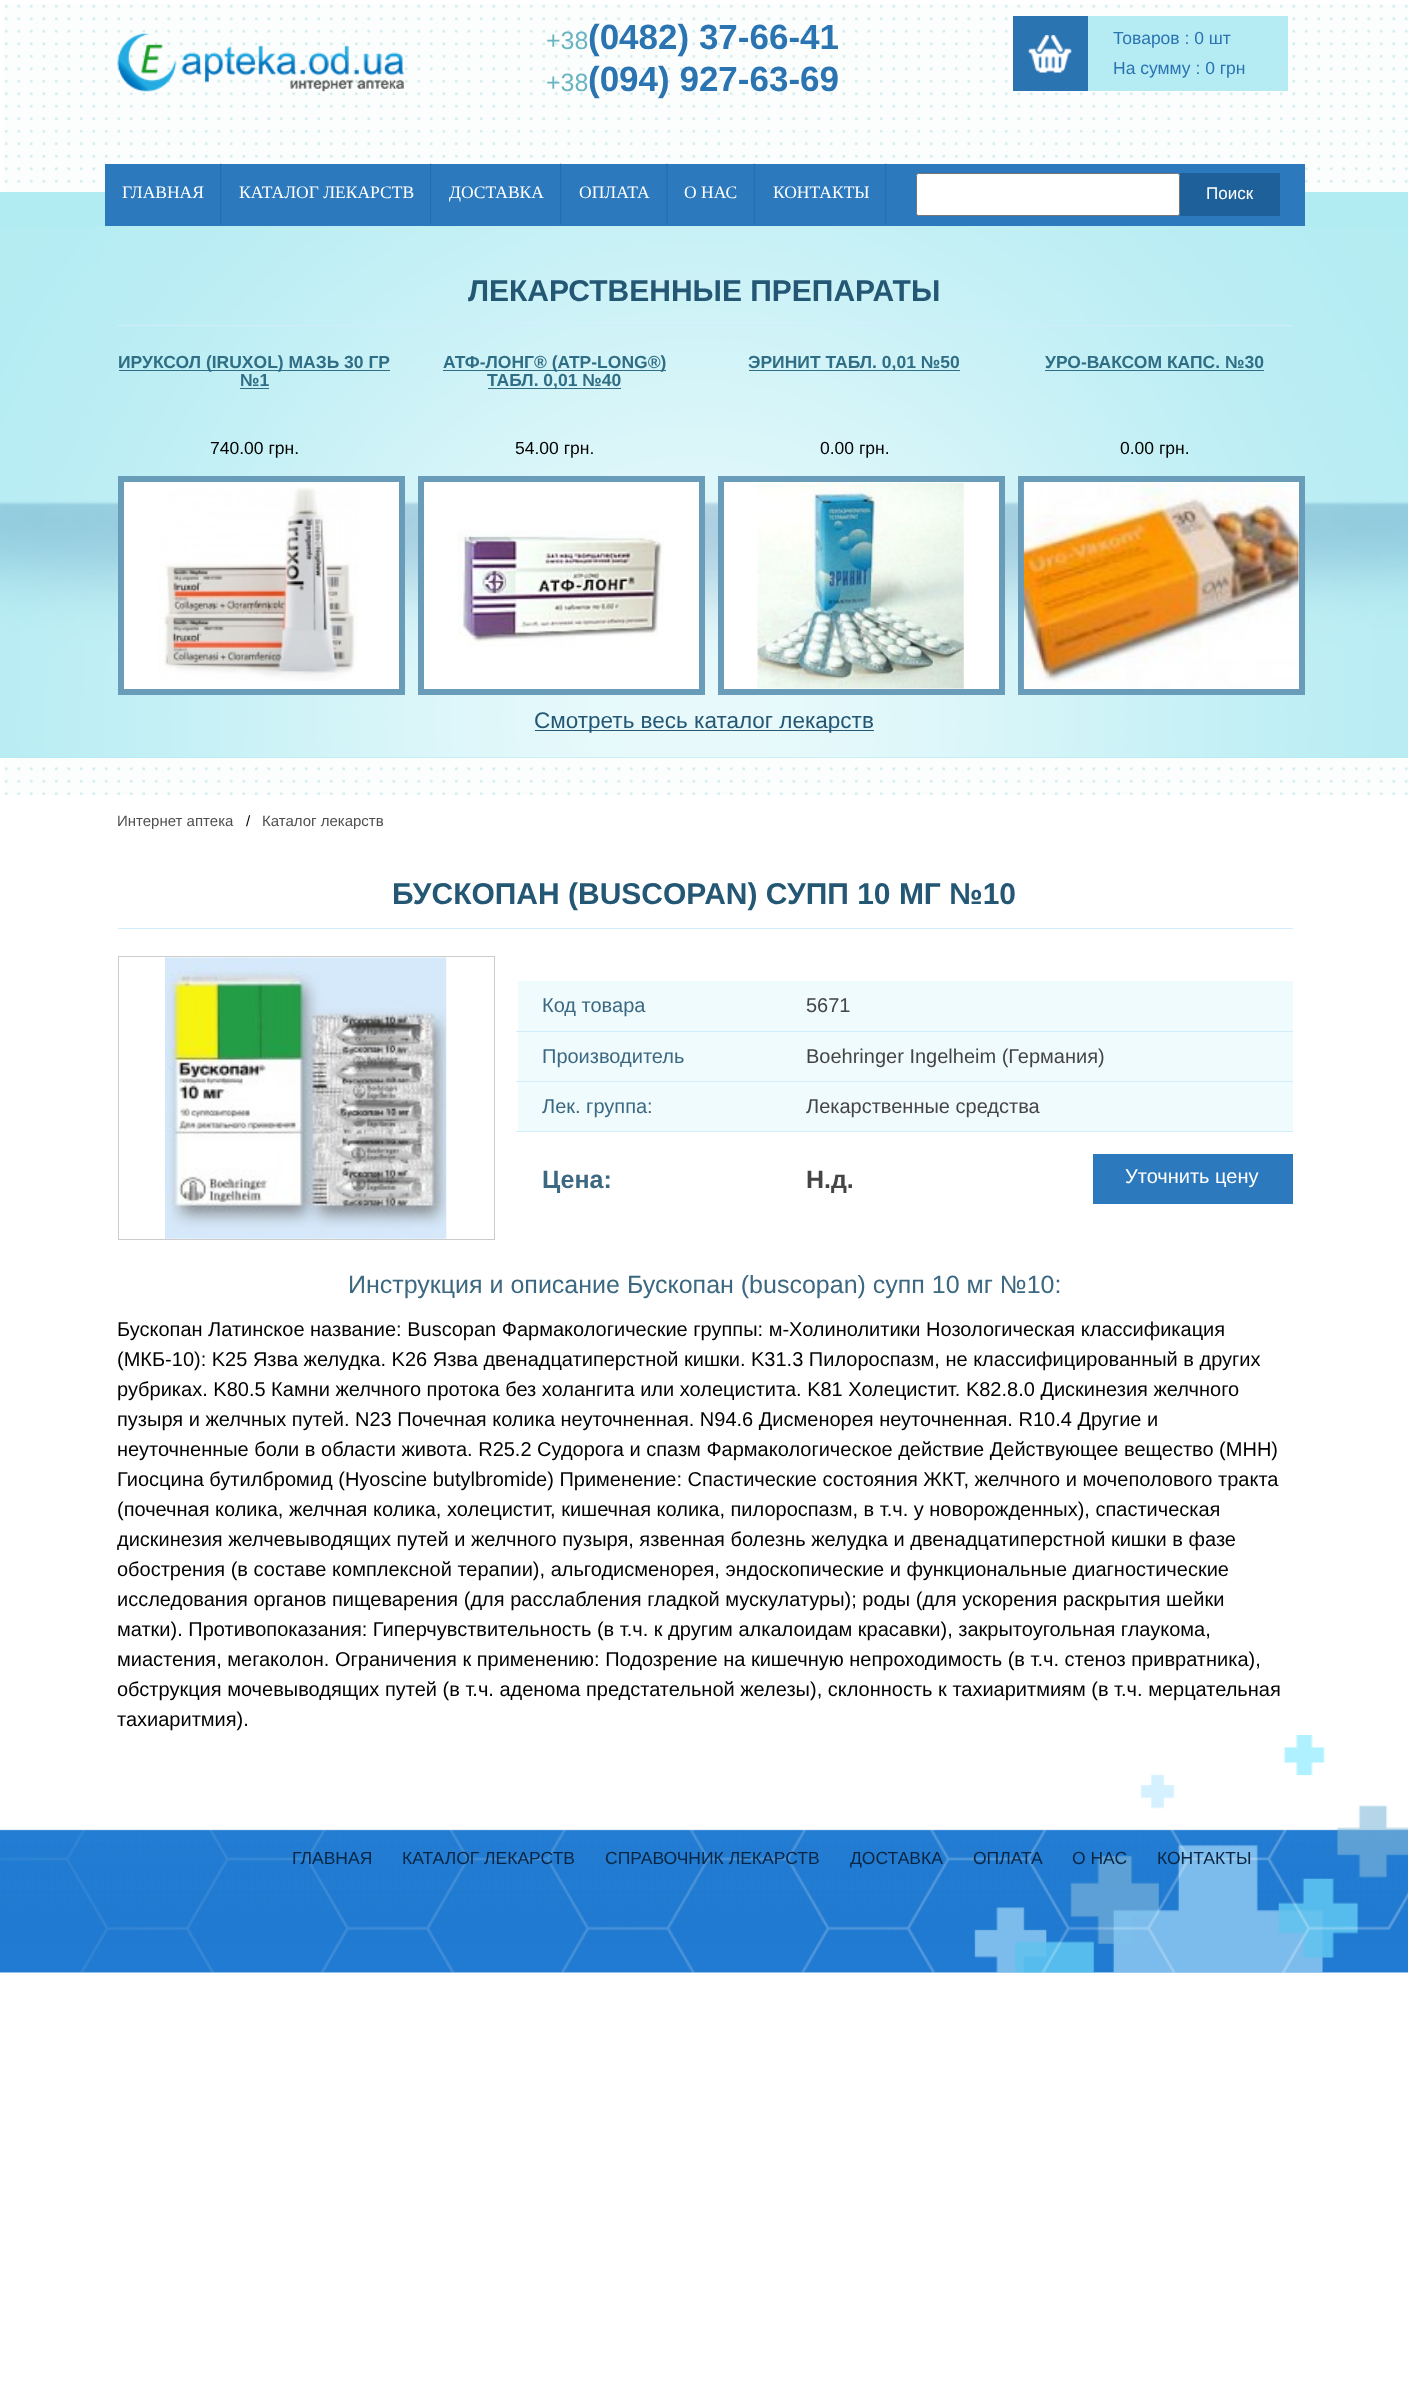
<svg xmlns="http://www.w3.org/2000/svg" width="1408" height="2408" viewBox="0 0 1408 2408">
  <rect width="100%" height="100%" fill="#ffffff"/>
  <image x="4" y="4" width="1404" height="791" href="img1.png"/>
  <image x="117" y="33" width="287" height="59" href="img2.png"/>
  <text x="546" y="49" font-family="Liberation Sans" font-size="25" fill="#6ab4c1">+38</text>
  <text x="588" y="49" font-family="Liberation Sans" font-size="35" font-weight="bold" fill="#2b74b2">(0482) 37-66-41</text>
  <text x="546" y="91" font-family="Liberation Sans" font-size="25" fill="#6ab4c1">+38</text>
  <text x="588" y="91" font-family="Liberation Sans" font-size="35" font-weight="bold" fill="#2b74b2">(094) 927-63-69</text>
  <rect x="1013" y="16" width="75" height="75" fill="#2b74b2"/>
  <image x="1028" y="35" width="44" height="38" href="img3.png"/>
  <rect x="1088" y="16" width="200" height="75" fill="#b5ecf3"/>
  <text x="1113" y="44" font-family="Liberation Sans" font-size="17.5" fill="#2b74b2">Товаров : 0 шт</text>
  <text x="1113" y="74" font-family="Liberation Sans" font-size="17.5" fill="#2b74b2">На сумму : 0 грн</text>
  <rect x="0" y="192" width="1408" height="34" fill="#b2ecf3"/>
  <rect x="105" y="164" width="1200" height="62" fill="#2c7abd"/>
  <image x="220" y="163" width="2" height="61" href="img4.png"/>
  <text x="122" y="198" font-family="Liberation Serif" font-size="17.5" fill="#ffffff">ГЛАВНАЯ</text>
  <image x="430" y="163" width="2" height="61" href="img4.png"/>
  <text x="239" y="198" font-family="Liberation Serif" font-size="17.5" fill="#ffffff">КАТАЛОГ ЛЕКАРСТВ</text>
  <image x="560" y="163" width="2" height="61" href="img4.png"/>
  <text x="449" y="198" font-family="Liberation Serif" font-size="17.5" fill="#ffffff">ДОСТАВКА</text>
  <image x="666" y="163" width="2" height="61" href="img5.png"/>
  <text x="579" y="198" font-family="Liberation Serif" font-size="17.5" fill="#ffffff">ОПЛАТА</text>
  <image x="753" y="163" width="2" height="61" href="img6.png"/>
  <text x="684" y="198" font-family="Liberation Serif" font-size="17.5" fill="#ffffff">О НАС</text>
  <image x="885" y="163" width="2" height="61" href="img4.png"/>
  <text x="773" y="198" font-family="Liberation Serif" font-size="17.5" fill="#ffffff">КОНТАКТЫ</text>
  <rect x="916.5" y="173.5" width="263" height="42" rx="2" fill="#ffffff" stroke="#767676"/>
  <rect x="1180" y="173" width="100" height="43" fill="#1e619a"/>
  <text x="1206" y="199" font-family="Liberation Sans" font-size="17" fill="#ffffff">Поиск</text>
  <rect x="0" y="226" width="1408" height="532" fill="#afebf2"/>
  <image x="0" y="226" width="1408" height="532" href="img7.png"/>
  <rect x="118" y="325" width="1175" height="1" fill="#d1ecfc"/>
  <text x="468" y="301" font-family="Liberation Sans" font-size="30" font-weight="bold" fill="#245774">ЛЕКАРСТВЕННЫЕ ПРЕПАРАТЫ</text>
  <rect x="119" y="370" width="271" height="1" fill="#2f6e85"/>
  <text x="118" y="368" font-family="Liberation Sans" font-size="17.5" font-weight="bold" fill="#2f6e85">ИРУКСОЛ (IRUXOL) МАЗЬ 30 ГР</text>
  <text x="240" y="386" font-family="Liberation Sans" font-size="17.5" font-weight="bold" fill="#2f6e85">№1</text>
  <rect x="240" y="388" width="29" height="1" fill="#2f6e85"/>
  <text x="210" y="454" font-family="Liberation Sans" font-size="17.5" fill="#000000">740.00 грн.</text>
  <rect x="121" y="479" width="281" height="213" fill="#ffffff" stroke="#699cb9" stroke-width="6"/>
  <image x="158" y="487" width="200" height="194" href="img8.png"/>
  <rect x="443" y="370" width="223" height="1" fill="#2f6e85"/>
  <text x="443" y="368" font-family="Liberation Sans" font-size="17.5" font-weight="bold" fill="#2f6e85">АТФ-ЛОНГ® (ATP-LONG®)</text>
  <rect x="488" y="388" width="133" height="1" fill="#2f6e85"/>
  <text x="487" y="386" font-family="Liberation Sans" font-size="17.5" font-weight="bold" fill="#2f6e85">ТАБЛ. 0,01 №40</text>
  <text x="515" y="454" font-family="Liberation Sans" font-size="17.5" fill="#000000">54.00 грн.</text>
  <rect x="421" y="479" width="281" height="213" fill="#ffffff" stroke="#699cb9" stroke-width="6"/>
  <image x="457" y="530" width="207" height="117" href="img9.png"/>
  <rect x="749" y="370" width="211" height="1" fill="#2f6e85"/>
  <text x="748" y="368" font-family="Liberation Sans" font-size="17.5" font-weight="bold" fill="#2f6e85">ЭРИНИТ ТАБЛ. 0,01 №50</text>
  <text x="820" y="454" font-family="Liberation Sans" font-size="17.5" fill="#000000">0.00 грн.</text>
  <rect x="721" y="479" width="281" height="213" fill="#ffffff" stroke="#699cb9" stroke-width="6"/>
  <image x="757" y="482" width="207" height="207" href="img10.png"/>
  <text x="1045" y="368" font-family="Liberation Sans" font-size="17.5" font-weight="bold" fill="#2f6e85">УРО-ВАКСОМ КАПС. №30</text>
  <rect x="1045" y="370" width="219" height="1" fill="#2f6e85"/>
  <text x="1120" y="454" font-family="Liberation Sans" font-size="17.5" fill="#000000">0.00 грн.</text>
  <rect x="1021" y="479" width="281" height="213" fill="#ffffff" stroke="#699cb9" stroke-width="6"/>
  <image x="1023" y="483" width="276" height="206" href="img11.png"/>
  <rect x="535" y="730" width="339" height="1" fill="#245774"/>
  <text x="534" y="728" font-family="Liberation Sans" font-size="22.5" fill="#245774">Смотреть весь каталог лекарств</text>
  <text x="117" y="826" font-family="Liberation Sans" font-size="15" fill="#4f4f4f">Интернет аптека</text>
  <text x="246" y="826" font-family="Liberation Sans" font-size="15" fill="#000000">/</text>
  <text x="262" y="826" font-family="Liberation Sans" font-size="15" fill="#4f4f4f">Каталог лекарств</text>
  <rect x="118" y="928" width="1175" height="1" fill="#d1ecfc"/>
  <text x="392" y="904" font-family="Liberation Sans" font-size="30" font-weight="bold" fill="#245774">БУСКОПАН (BUSCOPAN) СУПП 10 МГ №10</text>
  <rect x="118.5" y="956.5" width="376" height="283" fill="none" stroke="#cccccc"/>
  <image x="165" y="957" width="282" height="282" href="img12.png"/>
  <rect x="518" y="981" width="775" height="150" fill="#effbfc"/>
  <text x="542" y="1012" font-family="Liberation Sans" font-size="20" fill="#3c6881">Код товара</text>
  <text x="806" y="1012" font-family="Liberation Sans" font-size="20" fill="#454545">5671</text>
  <rect x="516" y="1031" width="777" height="1" fill="#d1ecfc"/>
  <text x="542" y="1063" font-family="Liberation Sans" font-size="20" fill="#3c6881">Производитель</text>
  <text x="806" y="1063" font-family="Liberation Sans" font-size="20" fill="#454545">Boehringer Ingelheim (Германия)</text>
  <rect x="516" y="1081" width="777" height="1" fill="#d1ecfc"/>
  <rect x="516" y="1131" width="777" height="1" fill="#d1ecfc"/>
  <text x="542" y="1113" font-family="Liberation Sans" font-size="20" fill="#3c6881">Лек. группа:</text>
  <text x="806" y="1113" font-family="Liberation Sans" font-size="20" fill="#454545">Лекарственные средства</text>
  <text x="542" y="1188" font-family="Liberation Sans" font-size="25" font-weight="bold" fill="#3c6881">Цена:</text>
  <text x="806" y="1188" font-family="Liberation Sans" font-size="25" font-weight="bold" fill="#454545">Н.д.</text>
  <rect x="1093" y="1154" width="200" height="50" fill="#2c7abd"/>
  <text x="1125" y="1183" font-family="Liberation Sans" font-size="20" fill="#ffffff">Уточнить цену</text>
  <text x="348" y="1293" font-family="Liberation Sans" font-size="25" fill="#3c6881">Инструкция и описание Бускопан (buscopan) супп 10 мг №10:</text>
  <text x="117" y="1336" font-family="Liberation Sans" font-size="20" fill="#000000">Бускопан Латинское название: Buscopan Фармакологические группы: м-Холинолитики Нозологическая классификация</text>
  <text x="117" y="1366" font-family="Liberation Sans" font-size="20" fill="#000000">(МКБ-10): K25 Язва желудка. K26 Язва двенадцатиперстной кишки. K31.3 Пилороспазм, не классифицированный в других</text>
  <text x="117" y="1396" font-family="Liberation Sans" font-size="20" fill="#000000">рубриках. K80.5 Камни желчного протока без холангита или холецистита. K81 Холецистит. K82.8.0 Дискинезия желчного</text>
  <text x="117" y="1426" font-family="Liberation Sans" font-size="20" fill="#000000">пузыря и желчных путей. N23 Почечная колика неуточненная. N94.6 Дисменорея неуточненная. R10.4 Другие и</text>
  <text x="117" y="1456" font-family="Liberation Sans" font-size="20" fill="#000000">неуточненные боли в области живота. R25.2 Судорога и спазм Фармакологическое действие Действующее вещество (МНН)</text>
  <text x="117" y="1486" font-family="Liberation Sans" font-size="20" fill="#000000">Гиосцина бутилбромид (Hyoscine butylbromide) Применение: Спастические состояния ЖКТ, желчного и мочеполового тракта</text>
  <text x="117" y="1516" font-family="Liberation Sans" font-size="20" fill="#000000">(почечная колика, желчная колика, холецистит, кишечная колика, пилороспазм, в т.ч. у новорожденных), спастическая</text>
  <text x="117" y="1546" font-family="Liberation Sans" font-size="20" fill="#000000">дискинезия желчевыводящих путей и желчного пузыря, язвенная болезнь желудка и двенадцатиперстной кишки в фазе</text>
  <text x="117" y="1576" font-family="Liberation Sans" font-size="20" fill="#000000">обострения (в составе комплексной терапии), альгодисменорея, эндоскопические и функциональные диагностические</text>
  <text x="117" y="1606" font-family="Liberation Sans" font-size="20" fill="#000000">исследования органов пищеварения (для расслабления гладкой мускулатуры); роды (для ускорения раскрытия шейки</text>
  <text x="117" y="1636" font-family="Liberation Sans" font-size="20" fill="#000000">матки). Противопоказания: Гиперчувствительность (в т.ч. к другим алкалоидам красавки), закрытоугольная глаукома,</text>
  <text x="117" y="1666" font-family="Liberation Sans" font-size="20" fill="#000000">миастения, мегаколон. Ограничения к применению: Подозрение на кишечную непроходимость (в т.ч. стеноз привратника),</text>
  <text x="117" y="1696" font-family="Liberation Sans" font-size="20" fill="#000000">обструкция мочевыводящих путей (в т.ч. аденома предстательной железы), склонность к тахиаритмиям (в т.ч. мерцательная</text>
  <text x="117" y="1726" font-family="Liberation Sans" font-size="20" fill="#000000">тахиаритмия).</text>
  <image x="0" y="1735" width="1408" height="238" href="img13.png"/>
  <text x="292" y="1864" font-family="Liberation Sans" font-size="17.5" fill="#082543">ГЛАВНАЯ</text>
  <text x="402" y="1864" font-family="Liberation Sans" font-size="17.5" fill="#082543">КАТАЛОГ ЛЕКАРСТВ</text>
  <text x="605" y="1864" font-family="Liberation Sans" font-size="17.5" fill="#082543">СПРАВОЧНИК ЛЕКАРСТВ</text>
  <text x="850" y="1864" font-family="Liberation Sans" font-size="17.5" fill="#082543">ДОСТАВКА</text>
  <text x="973" y="1864" font-family="Liberation Sans" font-size="17.5" fill="#082543">ОПЛАТА</text>
  <text x="1072" y="1864" font-family="Liberation Sans" font-size="17.5" fill="#082543">О НАС</text>
  <text x="1157" y="1864" font-family="Liberation Sans" font-size="17.5" fill="#082543">КОНТАКТЫ</text>
</svg>
